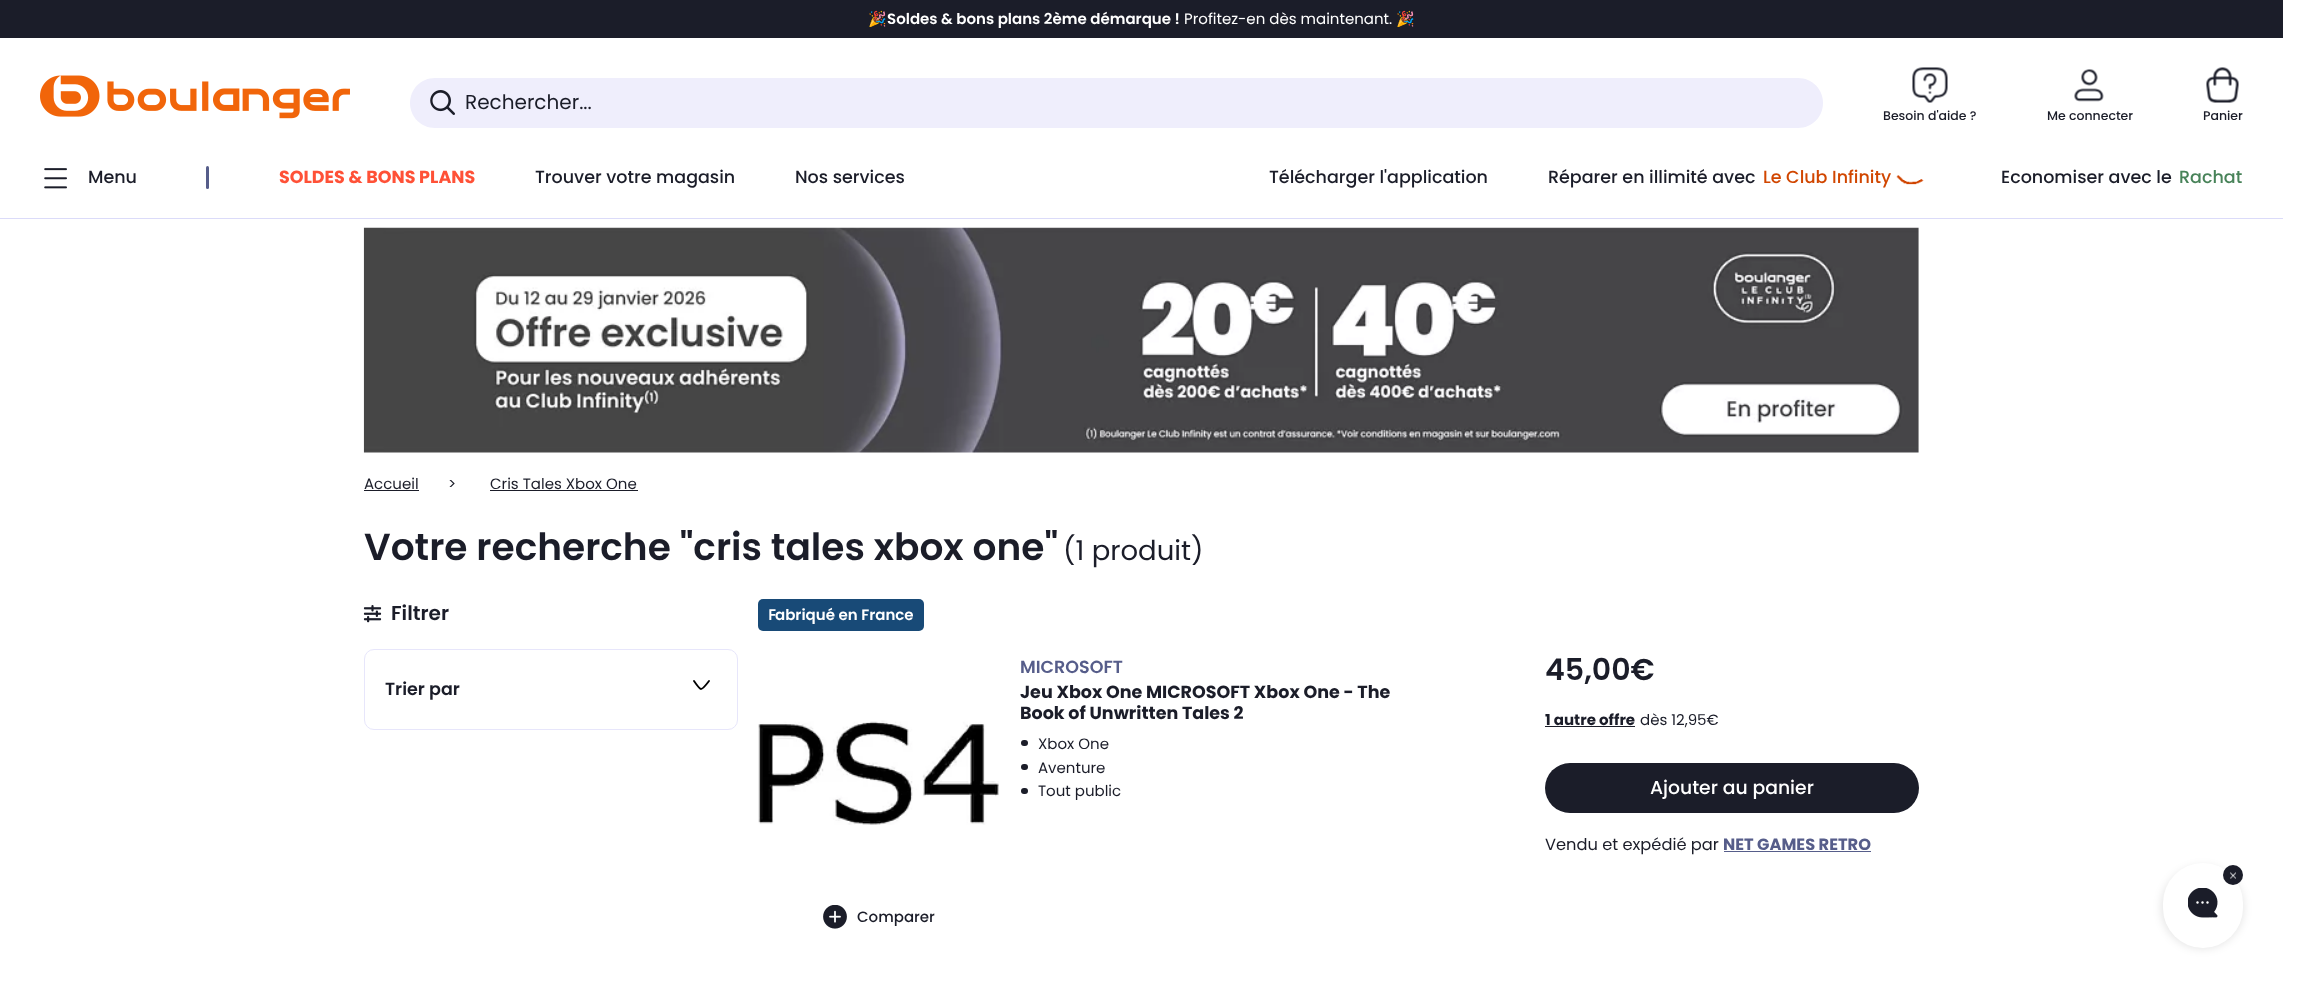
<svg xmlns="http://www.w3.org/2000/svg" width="2305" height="984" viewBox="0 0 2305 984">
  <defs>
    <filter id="blur1" x="-50%" y="-200%" width="200%" height="500%"><feGaussianBlur stdDeviation="0.5"/></filter>
    <filter id="blur2" x="-50%" y="-200%" width="200%" height="500%"><feGaussianBlur stdDeviation="4.5"/></filter>
  </defs>
  <rect width="100%" height="100%" fill="#ffffff"/>
  <rect x="0" y="0" width="2283" height="38" fill="#1b1d29"/>
  <text x="868" y="24" font-family="Noto Color Emoji" font-size="15" fill="#ffffff">🎉</text>
  <text x="887" y="24" font-family="Poppins" font-size="15" font-weight="600" fill="#ffffff">Soldes &amp; bons plans 2ème démarque !</text>
  <text x="1184" y="24" font-family="Poppins" font-size="15" fill="#ffffff">Profitez-en dès maintenant.</text>
  <text x="1396" y="24" font-family="Noto Color Emoji" font-size="15" fill="#ffffff">🎉</text>
  <rect x="0" y="39" width="2283" height="180" fill="#dbdbf9" filter="url(#blur1)"/>
  <rect x="0" y="38" width="2283" height="180" fill="#ffffff"/>
  <image x="40" y="75" width="310" height="44" href="img1.png"/>
  <path d="M435 78H465V128H435C421 128 410 117 410 103C410 89 421 78 435 78Z" fill="#efeefc"/>
  <image x="430" y="90" width="25" height="25" href="img2.png"/>
  <path d="M465 78H1798C1812 78 1823 89 1823 103C1823 117 1812 128 1798 128H465Z" fill="#efeefc"/>
  <text x="465" y="109" font-family="Poppins" font-size="20" fill="#1b1d29">Rechercher...</text>
  <image x="1912" y="67" width="36" height="36" href="img3.png"/>
  <text x="1883" y="120" font-family="Poppins" font-size="12.5" font-weight="500" fill="#1b1d29">Besoin d'aide ?</text>
  <image x="2074" y="69" width="30" height="33" href="img4.png"/>
  <text x="2047" y="120" font-family="Poppins" font-size="12.5" font-weight="500" fill="#1b1d29">Me connecter</text>
  <image x="2206" y="67" width="33" height="36" href="img5.png"/>
  <text x="2203" y="120" font-family="Poppins" font-size="12.5" font-weight="500" fill="#1b1d29">Panier</text>
  <image x="44" y="168" width="23" height="21" href="img6.png"/>
  <text x="88" y="183" font-family="Poppins" font-size="17.5" font-weight="500" fill="#1b1d29">Menu</text>
  <rect x="206" y="166" width="3" height="23" rx="1.5" fill="#565d8a"/>
  <text x="279" y="183" font-family="Poppins" font-size="17.5" font-weight="bold" fill="#ff5137">SOLDES &amp; BONS PLANS</text>
  <text x="535" y="183" font-family="Poppins" font-size="17.5" font-weight="500" fill="#1b1d29">Trouver votre magasin</text>
  <text x="795" y="183" font-family="Poppins" font-size="17.5" font-weight="500" fill="#1b1d29">Nos services</text>
  <text x="1269" y="183" font-family="Poppins" font-size="17.5" font-weight="500" fill="#1b1d29">Télécharger l'application</text>
  <text x="1548" y="183" font-family="Poppins" font-size="17.5" font-weight="500" fill="#1b1d29">Réparer en illimité avec</text>
  <text x="1763" y="183" font-family="Poppins" font-size="17.5" font-weight="500" fill="#d14600">Le Club Infinity</text>
  <image x="1896" y="175" width="28" height="10" href="img7.png"/>
  <text x="2001" y="183" font-family="Poppins" font-size="17.5" font-weight="500" fill="#1b1d29">Economiser avec le</text>
  <text x="2179" y="183" font-family="Poppins" font-size="17.5" font-weight="500" fill="#488359">Rachat</text>
  <image x="363" y="227" width="1556" height="226" href="img8.png"/>
  <text x="364" y="489" font-family="Poppins" font-size="15" fill="#1b1d29">Accueil</text>
  <rect x="364" y="490" width="55" height="1" fill="#1b1d29"/>
  <text x="448" y="489" font-family="Poppins" font-size="15" fill="#1b1d29">&gt;</text>
  <text x="490" y="489" font-family="Poppins" font-size="15" fill="#1b1d29">Cris Tales Xbox One</text>
  <rect x="490" y="490" width="148" height="1" fill="#1b1d29"/>
  <text x="364" y="560" font-family="Poppins" font-size="37.5" font-weight="600" fill="#1b1d29">Votre recherche "cris tales xbox one"</text>
  <text x="1063" y="560" font-family="Poppins" font-size="27.5" fill="#1b1d29">(1 produit)</text>
  <image x="363" y="605" width="19" height="18" href="img9.png"/>
  <text x="391" y="620" font-family="Poppins" font-size="20" font-weight="600" fill="#1b1d29">Filtrer</text>
  <rect x="364.5" y="649.5" width="373" height="80" rx="9.5" fill="none" stroke="#e7e6fb"/>
  <text x="385" y="695" font-family="Poppins" font-size="17.5" font-weight="600" fill="#1b1d29">Trier par</text>
  <path d="M694 681C694 681 699.5 689 701 689C703 689 709 681 709 681" fill="none" stroke="#000000" stroke-width="1.9" stroke-linecap="round" stroke-linejoin="round"/>
  <rect x="758" y="599" width="166" height="32" rx="5" fill="#184a77"/>
  <text x="768" y="620" font-family="Noto Sans" font-size="15" font-weight="600" fill="#ffffff">F</text>
  <text x="775" y="620" font-family="Poppins" font-size="15" font-weight="600" fill="#ffffff">abriqué en France</text>
  <text x="1020" y="673" font-family="Poppins" font-size="17.5" font-weight="600" fill="#565d8a">MICROSOFT</text>
  <text x="1020" y="698" font-family="Poppins" font-size="17.5" font-weight="bold" fill="#1b1d29">Jeu Xbox One MICROSOFT Xbox One - The</text>
  <text x="1020" y="719" font-family="Poppins" font-size="17.5" font-weight="bold" fill="#1b1d29">Book of Unwritten Tales 2</text>
  <rect x="1021" y="740" width="7" height="6" rx="3" fill="#1b1d29"/>
  <text x="1038" y="749" font-family="Poppins" font-size="15" fill="#1b1d29">Xbox One</text>
  <rect x="1021" y="764" width="7" height="6" rx="3" fill="#1b1d29"/>
  <text x="1038" y="773" font-family="Poppins" font-size="15" fill="#1b1d29">Aventure</text>
  <rect x="1021" y="788" width="7" height="6" rx="3" fill="#1b1d29"/>
  <text x="1038" y="796" font-family="Poppins" font-size="15" fill="#1b1d29">Tout public</text>
  <text x="1545" y="680" font-family="Poppins" font-size="30" font-weight="600" fill="#1b1d29">45,00€</text>
  <text x="1545" y="725" font-family="Poppins" font-size="15" font-weight="bold" fill="#1b1d29">1 autre offre</text>
  <rect x="1545" y="726" width="90" height="1" fill="#1b1d29"/>
  <text x="1640" y="725" font-family="Poppins" font-size="15" fill="#1b1d29">dès 12,95€</text>
  <rect x="1545" y="763" width="374" height="50" rx="25" fill="#1b1d29"/>
  <text x="1650" y="794" font-family="Poppins" font-size="18.75" font-weight="500" fill="#ffffff">Ajouter au panier</text>
  <text x="1545" y="850" font-family="Poppins" font-size="16.25" fill="#1b1d29">Vendu et expédié par</text>
  <text x="1723" y="850" font-family="Poppins" font-size="16.25" font-weight="bold" fill="#565d8a">NET GAMES RETRO</text>
  <rect x="1724" y="851" width="147" height="1" fill="#565d8a"/>
  <image x="758" y="720" width="241" height="105" href="img10.png"/>
  <image x="823" y="905" width="24" height="24" href="img11.png"/>
  <text x="857" y="922" font-family="Poppins" font-size="15" font-weight="500" fill="#1b1d29">Comparer</text>
  <rect x="2161" y="866" width="83" height="83" rx="41.5" fill="#000000" fill-opacity="0.1" filter="url(#blur2)"/>
  <rect x="2163" y="863" width="80" height="85" rx="40" fill="#ffffff"/>
  <image x="2188" y="888" width="30" height="30" href="img12.png"/>
  <circle cx="2233" cy="875" r="10" fill="#1b1d29"/>
  <image x="2230" y="872" width="6" height="7" href="img13.png"/>
</svg>
